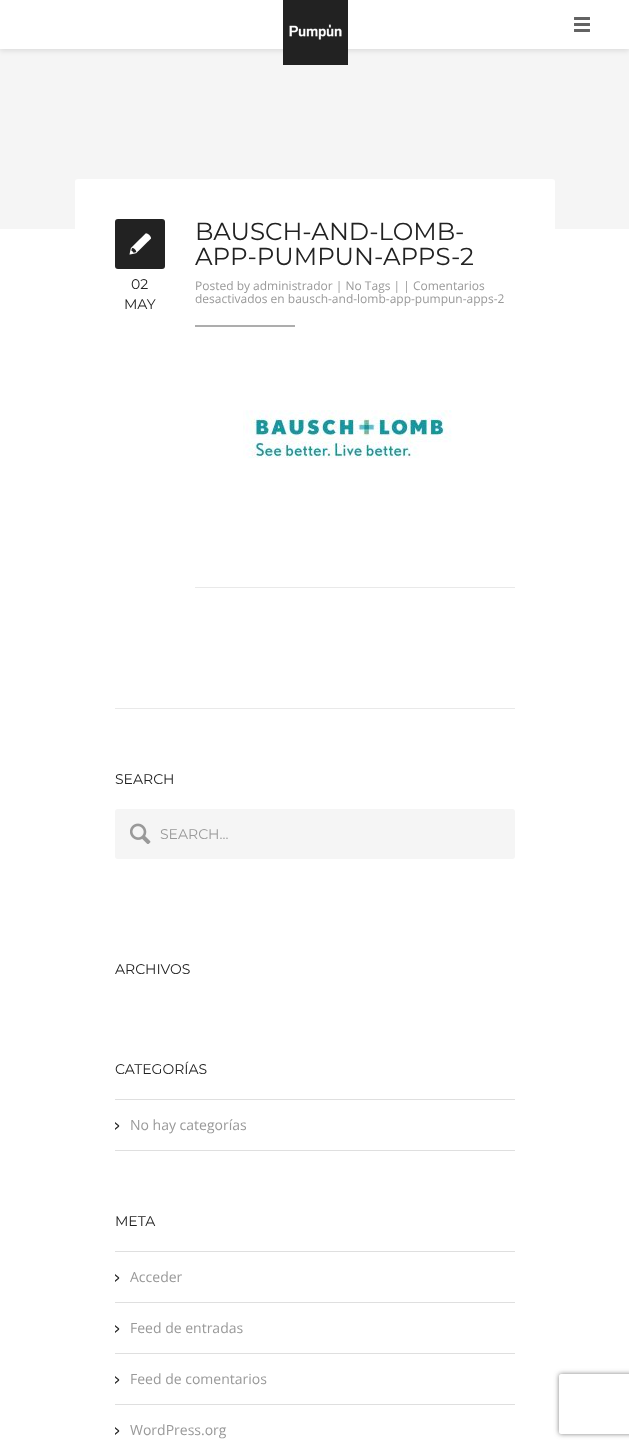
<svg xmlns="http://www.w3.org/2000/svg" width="629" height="1448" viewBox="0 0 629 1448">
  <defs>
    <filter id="blur1" x="-50%" y="-200%" width="200%" height="500%"><feGaussianBlur stdDeviation="2.5"/></filter>
    <clipPath id="clip1"><path d="M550 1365H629V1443H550ZM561 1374H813C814 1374 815 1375 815 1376V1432C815 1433 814 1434 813 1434H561C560 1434 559 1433 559 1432V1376C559 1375 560 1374 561 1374Z" clip-rule="evenodd"/></clipPath>
  </defs>
  <rect width="100%" height="100%" fill="#f5f5f5"/>
  <rect x="0" y="2" width="629" height="49" fill="#000000" fill-opacity="0.1" filter="url(#blur1)"/>
  <rect x="0" y="0" width="629" height="49" fill="#ffffff"/>
  <rect x="283" y="0" width="65" height="65" fill="#222222"/>
  <image x="289" y="24" width="53" height="16" href="img1.png"/>
  <image x="574" y="17" width="16" height="15" href="img2.png"/>
  <rect x="0" y="229" width="629" height="1219" fill="#ffffff"/>
  <rect x="75" y="179" width="480" height="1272" rx="3" fill="#ffffff"/>
  <rect x="115" y="219" width="50" height="50" rx="3" fill="#222222"/>
  <image x="129" y="233" width="22" height="22" href="img3.png"/>
  <text x="131" y="289" font-family="Montserrat" font-size="14" fill="#222222">02</text>
  <text x="124" y="309" font-family="Montserrat" font-size="14" fill="#222222">MAY</text>
  <text x="195" y="240" font-family="Montserrat" font-size="24.5" fill="#222222">BAUSCH-AND-LOMB-</text>
  <text x="195" y="265" font-family="Montserrat" font-size="24.5" fill="#222222">APP-PUMPUN-APPS-2</text>
  <text x="195" y="290" font-family="Open Sans" font-size="12" fill="#999999">Posted by administrador | No Tags | | Comentarios</text>
  <text x="195" y="303" font-family="Open Sans" font-size="12" fill="#999999">desactivados en bausch-and-lomb-app-pumpun-apps-2</text>
  <rect x="195" y="325" width="100" height="2" fill="#adadad"/>
  <image x="243" y="410" width="209" height="49" href="img4.png"/>
  <rect x="195" y="587" width="320" height="1" fill="#e9e9e9"/>
  <rect x="115" y="708" width="400" height="1" fill="#e9e9e9"/>
  <text x="115" y="784" font-family="Montserrat" font-size="14" fill="#222222">SEARCH</text>
  <rect x="115" y="809" width="400" height="50" rx="3" fill="#f5f5f5"/>
  <image x="130" y="823" width="21" height="21" href="img5.png"/>
  <text x="160" y="839" font-family="Montserrat" font-size="14" fill="#999999">SEARCH...</text>
  <text x="115" y="974" font-family="Montserrat" font-size="14" fill="#222222">ARCHIVOS</text>
  <text x="115" y="1074" font-family="Montserrat" font-size="14" fill="#222222">CATEGORÍAS</text>
  <image x="115" y="1122" width="5" height="8" href="img6.png"/>
  <rect x="115" y="1099" width="400" height="1" fill="#dfdfdf"/>
  <rect x="115" y="1150" width="400" height="1" fill="#dfdfdf"/>
  <text x="130" y="1130" font-family="Open Sans" font-size="14" fill="#999999">No hay categorías</text>
  <text x="115" y="1226" font-family="Montserrat" font-size="14" fill="#222222">META</text>
  <image x="115" y="1274" width="5" height="8" href="img6.png"/>
  <rect x="115" y="1251" width="400" height="1" fill="#dfdfdf"/>
  <rect x="115" y="1302" width="400" height="1" fill="#dfdfdf"/>
  <text x="130" y="1282" font-family="Open Sans" font-size="14" fill="#999999">Acceder</text>
  <image x="115" y="1325" width="5" height="8" href="img6.png"/>
  <rect x="115" y="1353" width="400" height="1" fill="#dfdfdf"/>
  <text x="130" y="1333" font-family="Open Sans" font-size="14" fill="#999999">Feed de entradas</text>
  <image x="115" y="1376" width="5" height="8" href="img6.png"/>
  <rect x="115" y="1404" width="400" height="1" fill="#dfdfdf"/>
  <text x="130" y="1384" font-family="Open Sans" font-size="14" fill="#999999">Feed de comentarios</text>
  <image x="115" y="1427" width="5" height="8" href="img6.png"/>
  <text x="130" y="1435" font-family="Open Sans" font-size="14" fill="#999999">WordPress.org</text>
  <g clip-path="url(#clip1)">
    <rect x="559" y="1374" width="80" height="60" rx="2" fill="#808080" filter="url(#blur1)"/>
  </g>
</svg>
